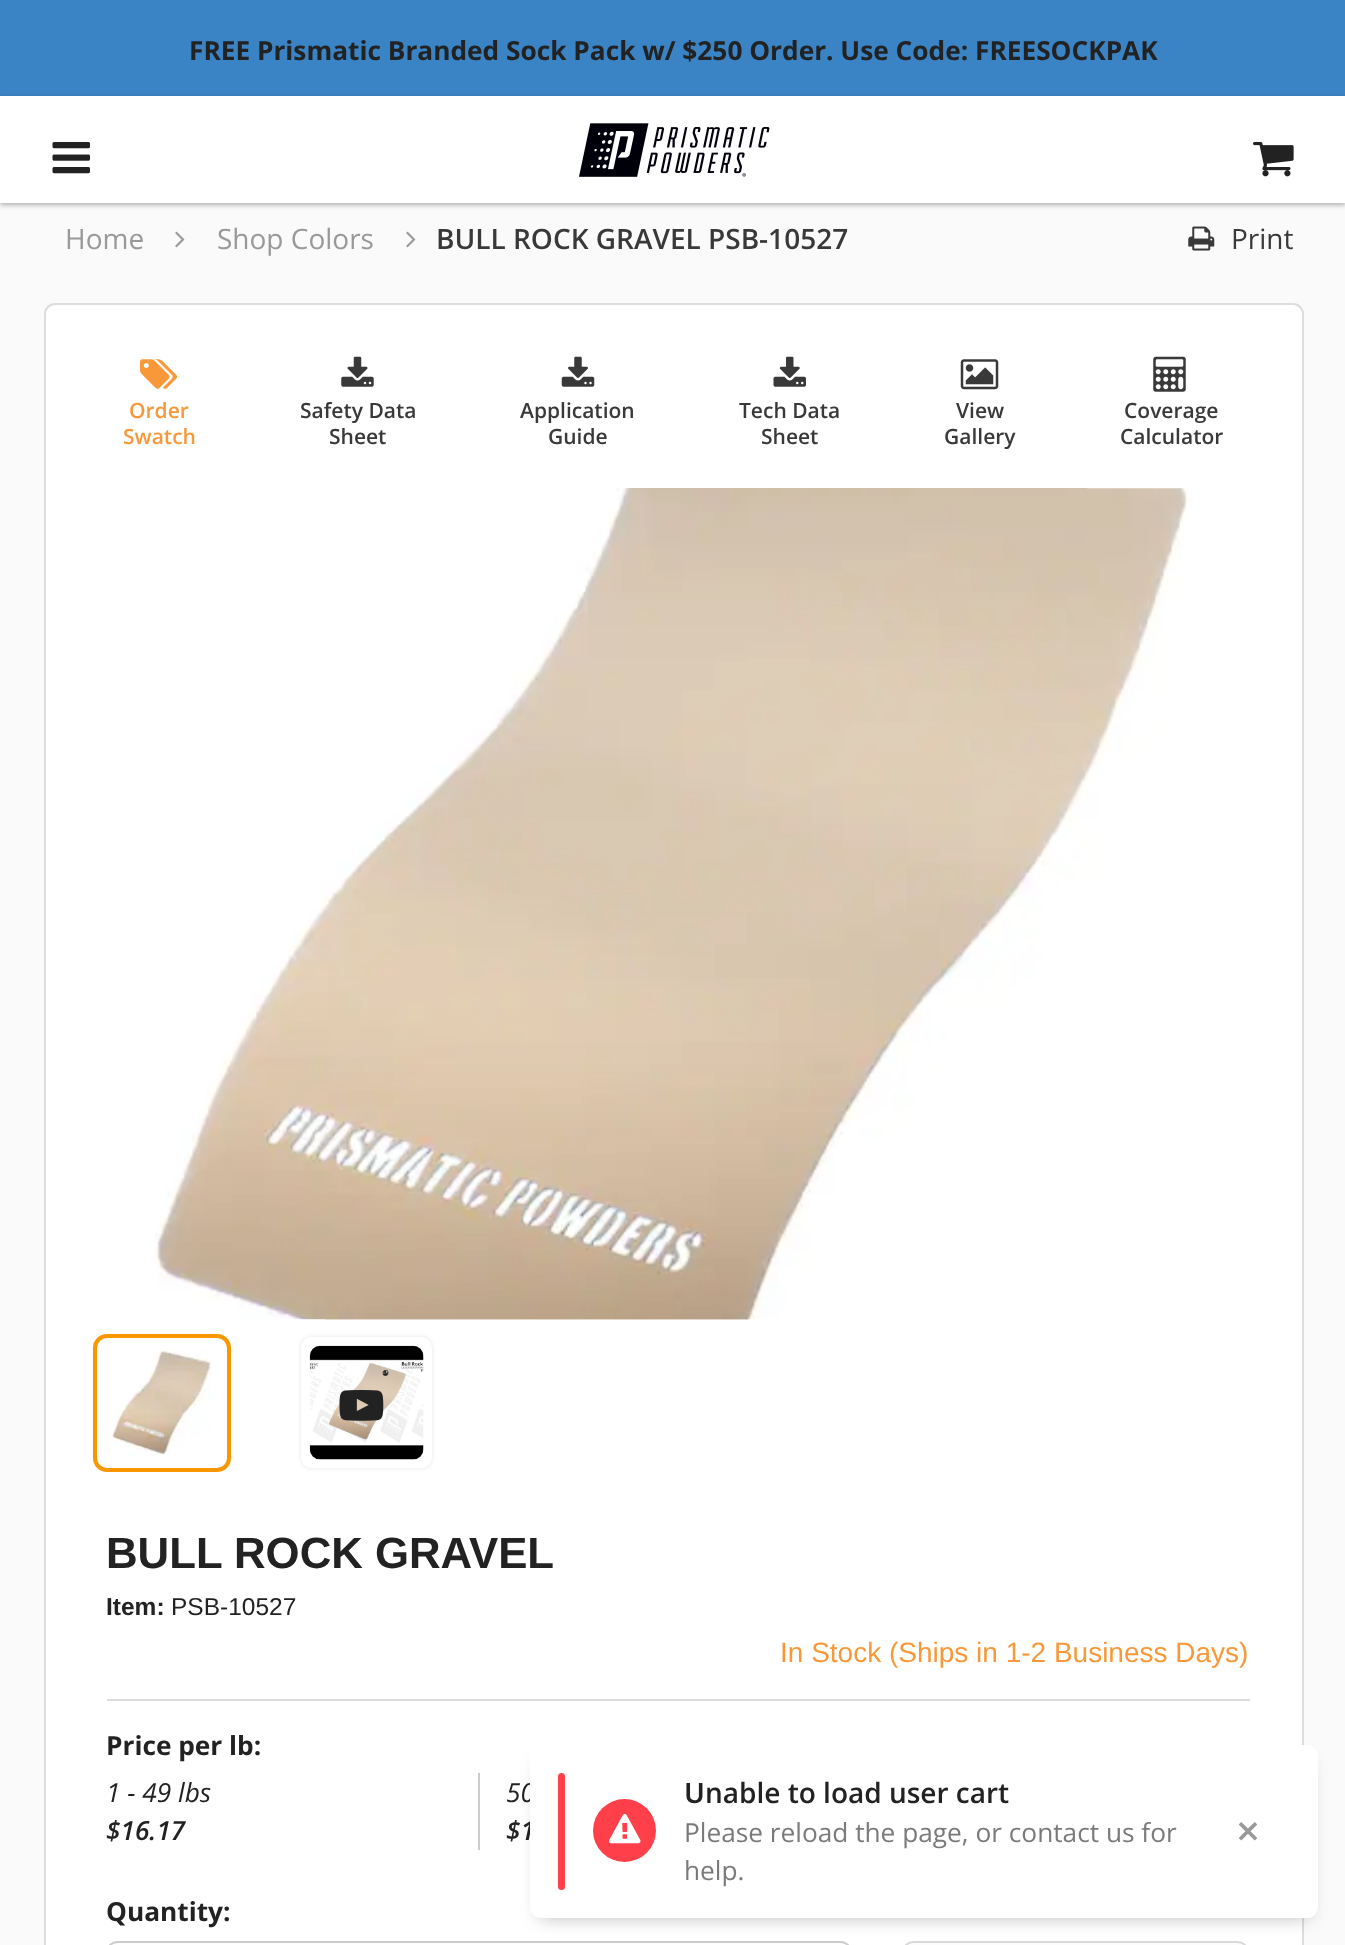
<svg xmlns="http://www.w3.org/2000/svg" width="1345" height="1945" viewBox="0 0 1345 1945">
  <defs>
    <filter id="blur1" x="-50%" y="-200%" width="200%" height="500%"><feGaussianBlur stdDeviation="2.5"/></filter>
    <clipPath id="clip1"><path d="M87 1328H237V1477H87ZM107 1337H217C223 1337 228 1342 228 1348V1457C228 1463 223 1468 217 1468H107C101 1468 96 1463 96 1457V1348C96 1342 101 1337 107 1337Z" clip-rule="evenodd"/></clipPath>
    <clipPath id="clip2"><path d="M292 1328H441V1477H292ZM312 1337H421C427 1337 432 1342 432 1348V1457C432 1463 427 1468 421 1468H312C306 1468 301 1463 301 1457V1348C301 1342 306 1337 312 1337Z" clip-rule="evenodd"/></clipPath>
    <clipPath id="clip3"><rect x="903" y="1941" width="345" height="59" rx="11"/></clipPath>
    <linearGradient id="g1" gradientUnits="userSpaceOnUse" x1="1075" y1="1943" x2="1075" y2="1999"><stop offset="0" stop-color="#fdfdfd"/><stop offset="1" stop-color="#e9e9e9"/></linearGradient>
    <filter id="blur2" x="-50%" y="-200%" width="200%" height="500%"><feGaussianBlur stdDeviation="9"/></filter>
  </defs>
  <rect width="100%" height="100%" fill="#fafafa"/>
  <rect x="0" y="0" width="1345" height="96" fill="#3a83c4"/>
  <text x="189" y="60" font-family="Open Sans" font-size="26.25" font-weight="bold" fill="#222222">FREE Prismatic Branded Sock Pack w/ $250 Order. Use Code: FREESOCKPAK</text>
  <rect x="0" y="98" width="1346" height="107" fill="#000000" fill-opacity="0.3" filter="url(#blur1)"/>
  <rect x="0" y="96" width="1345" height="107" fill="#ffffff"/>
  <image x="52" y="142" width="38" height="32" href="img1.png"/>
  <image x="579" y="123" width="191" height="54" href="img2.png"/>
  <image x="1253" y="142" width="41" height="35" href="img3.png"/>
  <text x="65" y="249" font-family="Open Sans" font-size="28" fill="#999999">Home</text>
  <image x="175" y="231" width="10" height="17" href="img4.png"/>
  <text x="217" y="249" font-family="Open Sans" font-size="28" fill="#999999">Shop Colors</text>
  <image x="406" y="231" width="10" height="17" href="img4.png"/>
  <text x="436" y="249" font-family="Open Sans" font-size="28" font-weight="600" fill="#393939">BULL ROCK GRAVEL PSB-10527</text>
  <image x="1188" y="226" width="27" height="25" href="img5.png"/>
  <text x="1231" y="249" font-family="Open Sans" font-size="28" fill="#393939">Print</text>
  <rect x="45" y="304" width="1258" height="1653" rx="10" fill="#ffffff" stroke="#dddddd" stroke-width="2"/>
  <image x="140" y="359" width="38" height="30" href="img6.png"/>
  <text x="129" y="418" font-family="Open Sans" font-size="21" font-weight="600" fill="#f99839">Order</text>
  <text x="123" y="444" font-family="Open Sans" font-size="21" font-weight="600" fill="#f99839">Swatch</text>
  <image x="341" y="356" width="33" height="31" href="img7.png"/>
  <text x="300" y="418" font-family="Open Sans" font-size="21" font-weight="600" fill="#393939">Safety Data</text>
  <text x="329" y="444" font-family="Open Sans" font-size="21" font-weight="600" fill="#393939">Sheet</text>
  <image x="561" y="356" width="34" height="31" href="img8.png"/>
  <text x="520" y="418" font-family="Open Sans" font-size="21" font-weight="600" fill="#393939">Application</text>
  <text x="548" y="444" font-family="Open Sans" font-size="21" font-weight="600" fill="#393939">Guide</text>
  <image x="773" y="356" width="33" height="31" href="img9.png"/>
  <text x="739" y="418" font-family="Open Sans" font-size="21" font-weight="600" fill="#393939">Tech Data</text>
  <text x="761" y="444" font-family="Open Sans" font-size="21" font-weight="600" fill="#393939">Sheet</text>
  <image x="960" y="359" width="39" height="31" href="img10.png"/>
  <text x="956" y="418" font-family="Open Sans" font-size="21" font-weight="600" fill="#393939">View</text>
  <text x="944" y="444" font-family="Open Sans" font-size="21" font-weight="600" fill="#393939">Gallery</text>
  <image x="1153" y="356" width="33" height="36" href="img11.png"/>
  <text x="1124" y="418" font-family="Open Sans" font-size="21" font-weight="600" fill="#393939">Coverage</text>
  <text x="1120" y="444" font-family="Open Sans" font-size="21" font-weight="600" fill="#393939">Calculator</text>
  <image x="155" y="488" width="1033" height="832" href="img12.png"/>
  <g clip-path="url(#clip1)">
    <rect x="96" y="1337" width="132" height="131" rx="11" fill="#000000" fill-opacity="0.1" filter="url(#blur1)"/>
  </g>
  <image x="105" y="1350" width="106" height="106" href="img13.png"/>
  <rect x="95" y="1336" width="134" height="134" rx="12" fill="none" stroke="#f99700" stroke-width="4"/>
  <g clip-path="url(#clip2)">
    <rect x="301" y="1337" width="131" height="131" rx="11" fill="#000000" fill-opacity="0.1" filter="url(#blur1)"/>
  </g>
  <image x="309" y="1345" width="115" height="115" href="img14.png"/>
  <image x="339" y="1390" width="45" height="31" href="img15.png"/>
  <text x="106" y="1568" font-family="Liberation Sans" font-size="43.75" font-weight="bold" fill="#222222">BULL ROCK GRAVEL</text>
  <text x="106" y="1615" font-family="Liberation Sans" font-size="24.5" font-weight="bold" fill="#222222">Item:</text>
  <text x="171" y="1615" font-family="Liberation Sans" font-size="24.5" fill="#222222">PSB-10527</text>
  <text x="780" y="1662" font-family="Liberation Sans" font-size="28" fill="#f99839">In Stock (Ships in 1-2 Business Days)</text>
  <rect x="107" y="1699" width="1143" height="2" fill="#dddddd"/>
  <text x="106" y="1755" font-family="Open Sans" font-size="26.25" font-weight="bold" fill="#222222">Price per lb:</text>
  <text x="106" y="1802" font-family="Open Sans" font-size="26.25" font-style="italic" fill="#222222">1 - 49 lbs</text>
  <text x="106" y="1840" font-family="Open Sans" font-size="26.25" font-weight="600" font-style="italic" fill="#222222">$16.17</text>
  <rect x="478" y="1773" width="2" height="77" fill="#cccccc"/>
  <text x="506" y="1802" font-family="Open Sans" font-size="26.25" font-style="italic" fill="#222222">50</text>
  <text x="506" y="1840" font-family="Open Sans" font-size="26.25" font-weight="600" font-style="italic" fill="#222222">$1</text>
  <text x="106" y="1921" font-family="Open Sans" font-size="26.25" font-weight="bold" fill="#222222">Quantity:</text>
  <rect x="108" y="1942" width="742" height="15" rx="10" fill="none" stroke="#cccccc" stroke-width="2"/>
  <g clip-path="url(#clip3)">
    <rect x="903" y="1943" width="345" height="2" fill="url(#g1)"/>
  </g>
  <rect x="904" y="1942" width="343" height="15" rx="10" fill="none" stroke="#d9d9d9" stroke-width="2"/>
  <rect x="539" y="1762" width="770" height="156" rx="2" fill="#000000" fill-opacity="0.25" filter="url(#blur2)"/>
  <rect x="530" y="1745" width="788" height="173" rx="11" fill="#ffffff"/>
  <rect x="558" y="1773" width="7" height="117" rx="3.5" fill="#ff3f49"/>
  <circle cx="624.5" cy="1830.5" r="31.5" fill="#ff3f49"/>
  <image x="609" y="1814" width="32" height="30" href="img16.png"/>
  <text x="684" y="1803" font-family="Noto Sans" font-size="28" font-weight="600" fill="#222222">U</text>
  <text x="705" y="1803" font-family="Open Sans" font-size="28" font-weight="600" fill="#222222">nable to load user cart</text>
  <text x="684" y="1842" font-family="Open Sans" font-size="26.25" fill="#7a7a7a">Please reload the page, or contact us for</text>
  <text x="684" y="1880" font-family="Open Sans" font-size="26.25" fill="#7a7a7a">help.</text>
  <text x="1236" y="1846" font-family="Open Sans" font-size="42" font-weight="600" fill="#999999">×</text>
</svg>
